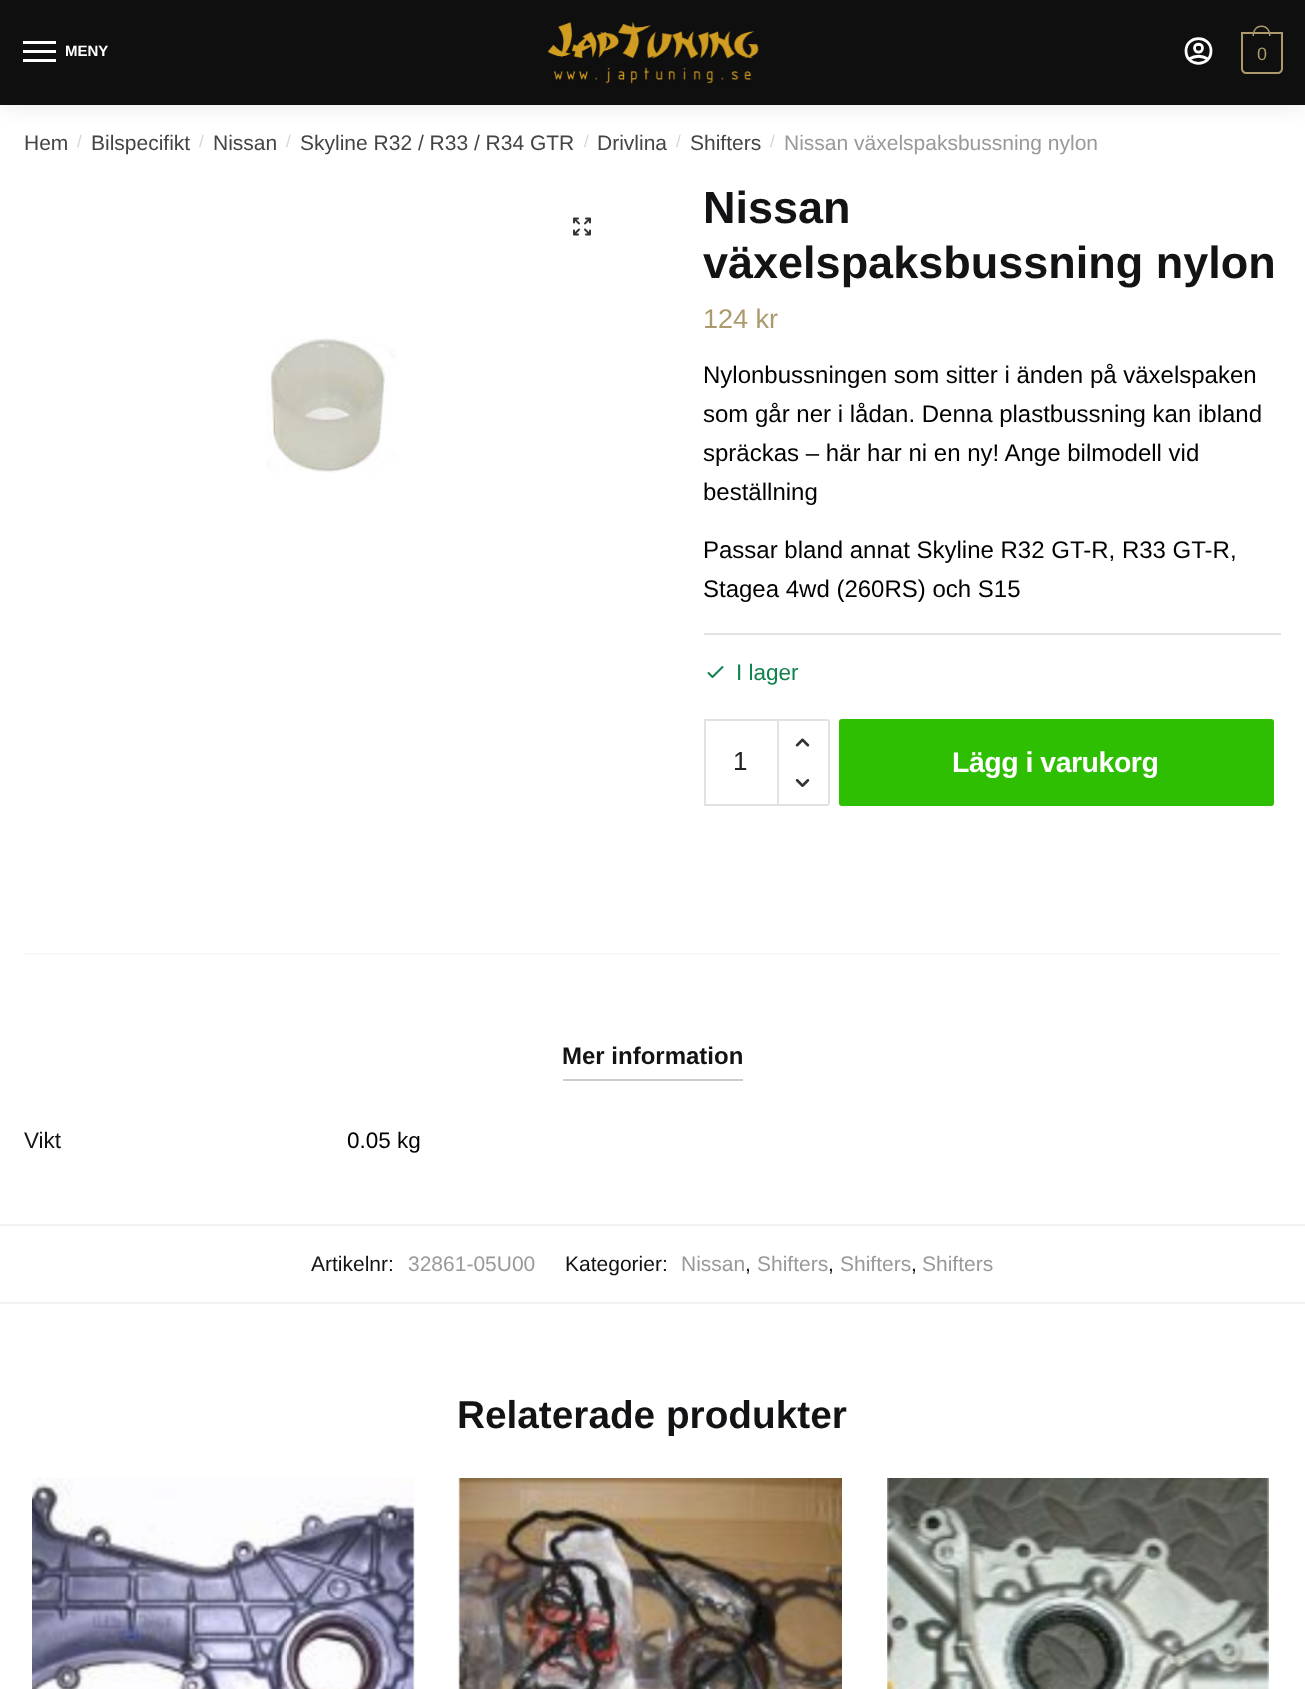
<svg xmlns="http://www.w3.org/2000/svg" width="1305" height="1689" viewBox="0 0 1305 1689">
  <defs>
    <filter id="blur1" x="-50%" y="-200%" width="200%" height="500%"><feGaussianBlur stdDeviation="11"/></filter>
  </defs>
  <rect width="100%" height="100%" fill="#ffffff"/>
  <rect x="0" y="2" width="1305" height="105" fill="#000000" fill-opacity="0.08" filter="url(#blur1)"/>
  <rect x="0" y="0" width="1305" height="105" fill="#0f0f0f"/>
  <rect x="23" y="41" width="33" height="3" fill="#ffffff"/>
  <rect x="23" y="50" width="33" height="3" fill="#ffffff"/>
  <text x="65" y="56" font-family="Liberation Sans" font-size="15" font-weight="bold" fill="#ffffff">MENY</text>
  <rect x="23" y="59" width="33" height="3" fill="#ffffff"/>
  <image x="547" y="22" width="212" height="62" href="img1.png"/>
  <path d="M1189 59C1195 55.5 1202 55.5 1208 59M1202.5 48C1202.5 53.5 1194.5 53.5 1194.5 48C1194.5 43 1202.5 43 1202.5 48ZM1211 51C1211 67.5 1186 67.5 1186 51C1186 34.5 1211 34.5 1211 51Z" fill="none" stroke="#ffffff" stroke-width="2.8" stroke-linecap="round" stroke-linejoin="round"/>
  <path d="M1242 33H1282V69C1282 71 1280 73 1278 73H1246C1244 73 1242 71 1242 69Z" fill="none" stroke="#ac9a6c" stroke-width="2"/>
  <path d="M1261.5 25.5C1267.5 25.5 1270.5 30.5 1270.5 36H1252.5C1252.5 30.5 1255.5 25.5 1261.5 25.5ZM1261.5 27C1267 27 1269 31.5 1269 36H1254C1254 31.5 1256 27 1261.5 27Z" fill="#ac9a6c" fill-rule="evenodd"/>
  <text x="1257" y="60" font-family="Liberation Sans" font-size="18" letter-spacing="-1" fill="#ac9a6c">0</text>
  <text x="24" y="150" font-family="Liberation Sans" font-size="21" fill="#444444">Hem</text>
  <text x="77" y="147" font-family="Liberation Sans" font-size="17" fill="#d6d6d6">/</text>
  <text x="91" y="150" font-family="Liberation Sans" font-size="21" fill="#444444">Bilspecifikt</text>
  <text x="199" y="147" font-family="Liberation Sans" font-size="17" fill="#d6d6d6">/</text>
  <text x="213" y="150" font-family="Liberation Sans" font-size="21" fill="#444444">Nissan</text>
  <text x="286" y="147" font-family="Liberation Sans" font-size="17" fill="#d6d6d6">/</text>
  <text x="300" y="150" font-family="Liberation Sans" font-size="21" fill="#444444">Skyline R32 / R33 / R34 GTR</text>
  <text x="584" y="147" font-family="Liberation Sans" font-size="17" fill="#d6d6d6">/</text>
  <text x="597" y="150" font-family="Liberation Sans" font-size="21" fill="#444444">Drivlina</text>
  <text x="676" y="147" font-family="Liberation Sans" font-size="17" fill="#d6d6d6">/</text>
  <text x="690" y="150" font-family="Liberation Sans" font-size="21" fill="#444444">Shifters</text>
  <text x="770" y="147" font-family="Liberation Sans" font-size="17" fill="#d6d6d6">/</text>
  <text x="784" y="150" font-family="Liberation Sans" font-size="21" fill="#999999">Nissan växelspaksbussning nylon</text>
  <image x="573" y="217" width="18" height="19" href="img2.png"/>
  <image x="266" y="337" width="131" height="136" href="img3.png"/>
  <text x="703" y="223" font-family="Liberation Sans" font-size="45" font-weight="bold" fill="#131315">Nissan</text>
  <text x="703" y="278" font-family="Liberation Sans" font-size="45" font-weight="bold" fill="#131315">växelspaksbussning nylon</text>
  <text x="703" y="328" font-family="Liberation Sans" font-size="27" fill="#ac9a6c">124 kr</text>
  <text x="703" y="383" font-family="Liberation Sans" font-size="24" fill="#000000">Nylonbussningen som sitter i änden på växelspaken</text>
  <text x="703" y="422" font-family="Liberation Sans" font-size="24" fill="#000000">som går ner i lådan. Denna plastbussning kan ibland</text>
  <text x="703" y="461" font-family="Liberation Sans" font-size="24" fill="#000000">spräckas – här har ni en ny! Ange bilmodell vid</text>
  <text x="703" y="500" font-family="Liberation Sans" font-size="24" fill="#000000">beställning</text>
  <text x="703" y="558" font-family="Liberation Sans" font-size="24" fill="#000000">Passar bland annat Skyline R32 GT-R, R33 GT-R,</text>
  <text x="703" y="597" font-family="Liberation Sans" font-size="24" fill="#000000">Stagea 4wd (260RS) och S15</text>
  <rect x="704" y="633" width="577" height="2" fill="#e2e2e2"/>
  <path d="M708.5 673L712.5 677L722.5 667" fill="none" stroke="#0f834d" stroke-width="2" stroke-linecap="round" stroke-linejoin="round"/>
  <text x="736" y="680" font-family="Liberation Sans" font-size="22.5" fill="#0f834d">I lager</text>
  <rect x="705" y="720" width="73" height="85" fill="none" stroke="#e2e2e2" stroke-width="2"/>
  <text x="733" y="770" font-family="Liberation Sans" font-size="26" fill="#222222">1</text>
  <path d="M778 720H827C828 720 829 721 829 722V803C829 804 828 805 827 805H778Z" fill="#ffffff" stroke="#e2e2e2" stroke-width="2"/>
  <image x="795" y="738" width="15" height="9" href="img4.png"/>
  <rect x="827" y="803" width="1" height="1" fill="#ffffff"/>
  <image x="795" y="779" width="15" height="8" href="img5.png"/>
  <rect x="839" y="719" width="435" height="87" rx="3" fill="#2ebe02"/>
  <text x="952" y="772" font-family="Liberation Sans" font-size="28.5" font-weight="bold" letter-spacing="-0.5" fill="#ffffff">Lägg i varukorg</text>
  <rect x="24" y="953" width="1257" height="2" fill="#f8f8f8"/>
  <text x="562" y="1064" font-family="Liberation Sans" font-size="24" font-weight="bold" fill="#131315">Mer information</text>
  <rect x="563" y="1079" width="180" height="2" fill="#cccccc"/>
  <text x="24" y="1148" font-family="Liberation Sans" font-size="22.5" fill="#131315">Vikt</text>
  <text x="347" y="1148" font-family="Liberation Sans" font-size="22.5" fill="#000000">0.05 kg</text>
  <rect x="0" y="1224" width="1305" height="2" fill="#f2f2f2"/>
  <rect x="0" y="1302" width="1305" height="2" fill="#f2f2f2"/>
  <text x="311" y="1271" font-family="Liberation Sans" font-size="21" fill="#131315">Artikelnr:</text>
  <text x="408" y="1271" font-family="Liberation Sans" font-size="21" fill="#999999">32861-05U00</text>
  <text x="565" y="1271" font-family="Liberation Sans" font-size="21" fill="#131315">Kategorier:</text>
  <text x="681" y="1271" font-family="Liberation Sans" font-size="21" fill="#999999">Nissan</text>
  <text x="745" y="1271" font-family="Liberation Sans" font-size="21" fill="#131315">,</text>
  <text x="757" y="1271" font-family="Liberation Sans" font-size="21" fill="#999999">Shifters</text>
  <text x="828" y="1271" font-family="Liberation Sans" font-size="21" fill="#131315">,</text>
  <text x="840" y="1271" font-family="Liberation Sans" font-size="21" fill="#999999">Shifters</text>
  <text x="911" y="1271" font-family="Liberation Sans" font-size="21" fill="#131315">,</text>
  <text x="922" y="1271" font-family="Liberation Sans" font-size="21" fill="#999999">Shifters</text>
  <text x="457" y="1428" font-family="Liberation Sans" font-size="38.75" font-weight="bold" fill="#131315">Relaterade produkter</text>
  <image x="32" y="1478" width="383" height="211" href="img6.png"/>
  <image x="458" y="1478" width="384" height="211" href="img7.png"/>
  <image x="887" y="1478" width="382" height="211" href="img8.png"/>
</svg>
